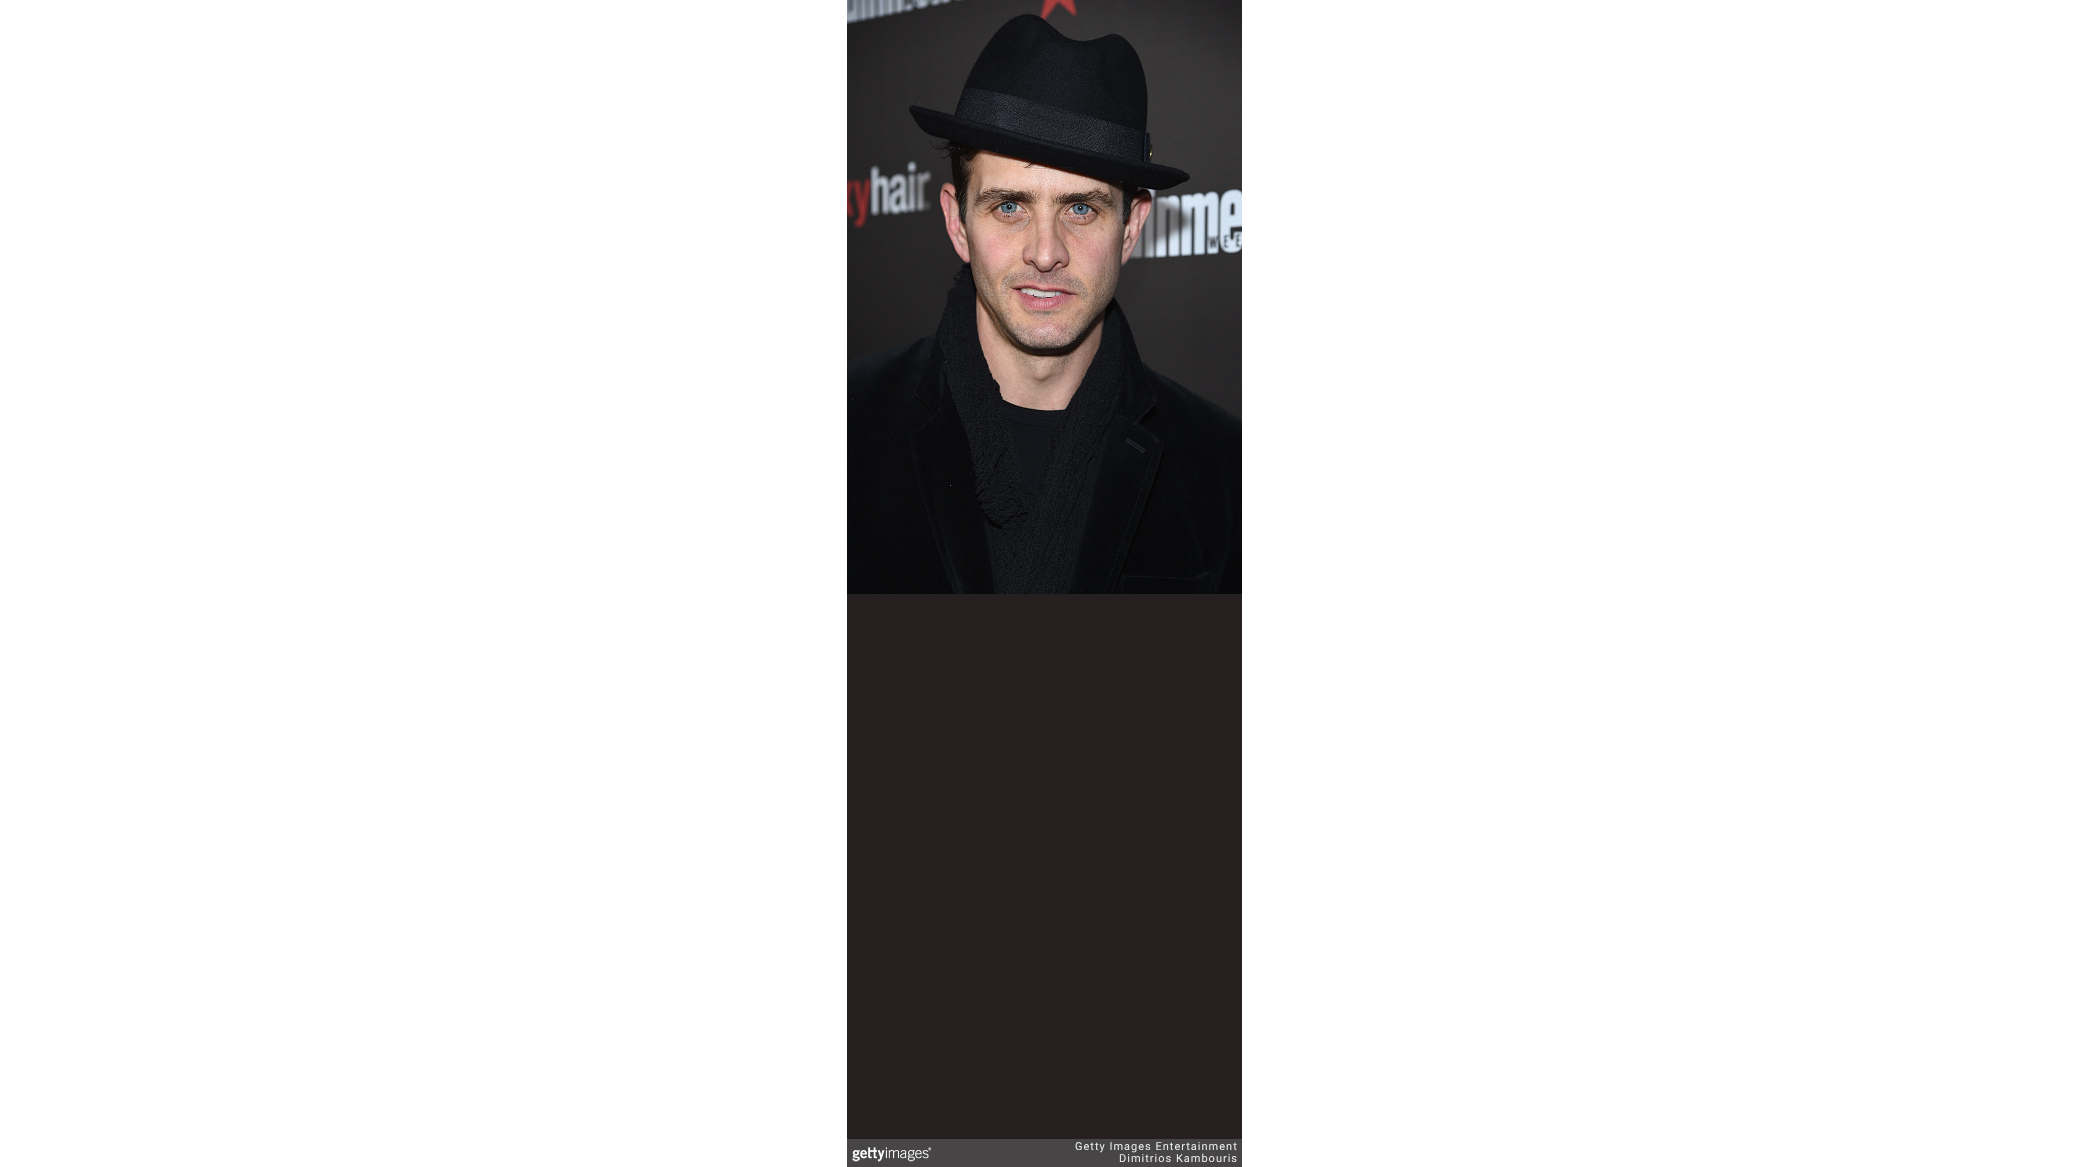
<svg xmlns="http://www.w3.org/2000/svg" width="2089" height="1167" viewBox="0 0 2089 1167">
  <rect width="100%" height="100%" fill="#ffffff"/>
  <rect x="847" y="594" width="395" height="545" fill="#251f20"/>
  <image x="847" y="0" width="395" height="594" href="img1.png"/>
  <rect x="847" y="1139" width="395" height="28" fill="#474545"/>
  <image x="852" y="1147" width="80" height="15" href="img2.png"/>
  <text x="1075" y="1150" font-family="Roboto" font-size="11" letter-spacing="1" fill="#eeeeee">Getty Images Entertainment</text>
  <text x="1119" y="1162" font-family="Roboto" font-size="11" letter-spacing="1" fill="#eeeeee">Dimitrios Kambouris</text>
</svg>
